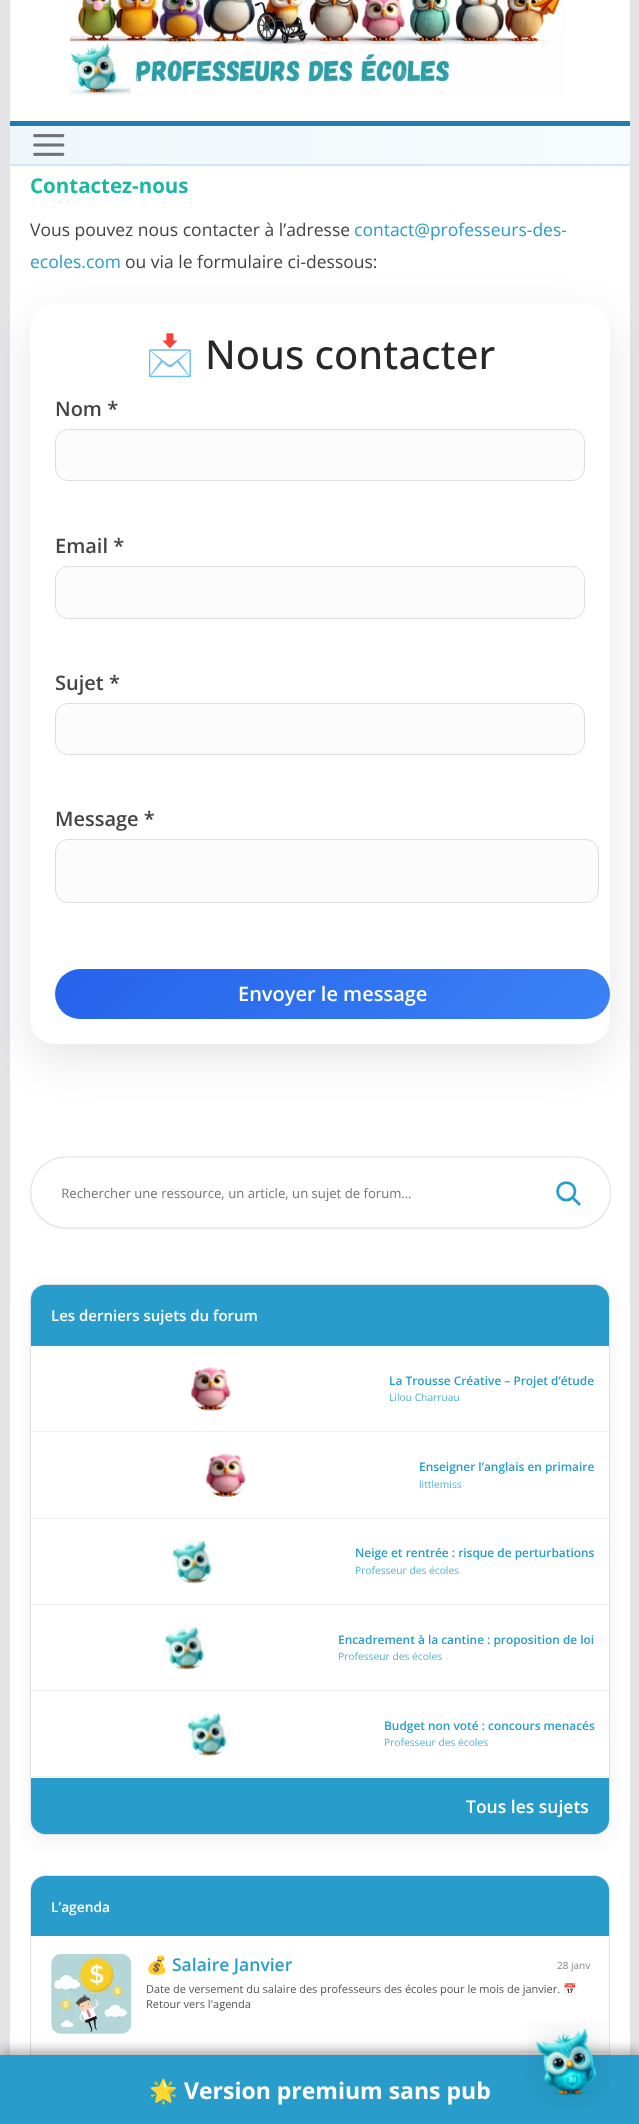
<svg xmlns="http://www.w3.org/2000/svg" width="639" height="2124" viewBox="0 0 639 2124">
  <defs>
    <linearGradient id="g1" gradientUnits="userSpaceOnUse" x1="30" y1="186" x2="610" y2="186"><stop offset="0" stop-color="#1abc9c"/><stop offset="1" stop-color="#289dcc"/></linearGradient>
    <linearGradient id="g2" gradientUnits="userSpaceOnUse" x1="10" y1="145" x2="630" y2="145"><stop offset="0" stop-color="#f0f7fa"/><stop offset="1" stop-color="#f6fbfd"/></linearGradient>
    <linearGradient id="g3" gradientUnits="userSpaceOnUse" x1="10" y1="145" x2="630" y2="145"><stop offset="0" stop-color="#c8e5f1"/><stop offset="1" stop-color="#cde8f3"/></linearGradient>
    <filter id="blur1" x="-50%" y="-200%" width="200%" height="500%"><feGaussianBlur stdDeviation="22"/></filter>
    <linearGradient id="g4" gradientUnits="userSpaceOnUse" x1="181" y1="843" x2="484" y2="1145"><stop offset="0" stop-color="#2563eb"/><stop offset="1" stop-color="#3b82f6"/></linearGradient>
    <filter id="blur2" x="-50%" y="-200%" width="200%" height="500%"><feGaussianBlur stdDeviation="9"/></filter>
    <filter id="blur3" x="-50%" y="-200%" width="200%" height="500%"><feGaussianBlur stdDeviation="6"/></filter>
  </defs>
  <rect width="100%" height="100%" fill="#e4e4e7"/>
  <rect x="10" y="0" width="620" height="121" fill="#ffffff"/>
  <image x="70" y="0" width="495" height="96" href="img1.png"/>
  <rect x="10" y="126" width="620" height="38" fill="url(#g2)"/>
  <rect x="10" y="164" width="620" height="1" fill="url(#g3)"/>
  <rect x="10" y="121" width="620" height="5" fill="#207daf"/>
  <image x="33" y="134" width="32" height="22" href="img2.png"/>
  <rect x="10" y="166" width="620" height="1889" fill="#ffffff"/>
  <text x="30" y="193" font-family="Open Sans" font-size="20.5" font-weight="bold" fill="url(#g1)">Contactez-nous</text>
  <text x="30" y="236" font-family="Open Sans" font-size="17.5" fill="#444444">Vous pouvez nous contacter à l’adresse</text>
  <text x="354" y="236" font-family="Open Sans" font-size="17.5" fill="#289dcc">contact@professeurs-des-</text>
  <rect x="30" y="319" width="580" height="740" rx="25" fill="#000000" fill-opacity="0.1" filter="url(#blur1)"/>
  <text x="30" y="268" font-family="Open Sans" font-size="17.5" fill="#289dcc">ecoles.com</text>
  <text x="125" y="268" font-family="Open Sans" font-size="17.5" fill="#444444">ou via le formulaire ci-dessous:</text>
  <rect x="30" y="304" width="580" height="740" rx="25" fill="#ffffff"/>
  <text x="145" y="369" font-family="Noto Color Emoji" font-size="40" fill="#27272a">📩</text>
  <text x="205" y="369" font-family="Open Sans" font-size="40" font-weight="500" fill="#27272a">Nous contacter</text>
  <text x="55" y="416" font-family="Open Sans" font-size="20" font-weight="600" fill="#444444">Nom *</text>
  <rect x="55.5" y="429.5" width="529" height="51" rx="12.5" fill="#fcfcfc" stroke="#dddddd"/>
  <text x="55" y="553" font-family="Open Sans" font-size="20" font-weight="600" fill="#444444">Email *</text>
  <rect x="55.5" y="566.5" width="529" height="52" rx="12.5" fill="#fcfcfc" stroke="#dddddd"/>
  <text x="55" y="690" font-family="Open Sans" font-size="20" font-weight="600" fill="#444444">Sujet *</text>
  <rect x="55.5" y="703.5" width="529" height="51" rx="12.5" fill="#fcfcfc" stroke="#dddddd"/>
  <text x="55" y="826" font-family="Open Sans" font-size="20" font-weight="600" fill="#444444">Message *</text>
  <rect x="55.5" y="839.5" width="543" height="63" rx="12.5" fill="#fcfcfc" stroke="#dddddd"/>
  <rect x="55" y="969" width="555" height="50" rx="25" fill="url(#g4)"/>
  <text x="238" y="1001" font-family="Open Sans" font-size="20" font-weight="600" fill="#ffffff">Envoyer le message</text>
  <image x="30" y="1156" width="581" height="74" href="img3.png"/>
  <rect x="30" y="1289" width="580" height="551" rx="15" fill="#000000" fill-opacity="0.06" filter="url(#blur2)"/>
  <rect x="30.5" y="1284.5" width="579" height="550" rx="14.5" fill="#ffffff" stroke="#e0e0e0"/>
  <path d="M45 1285H595C602.5 1285 609 1291.5 609 1299V1346H31V1299C31 1291.5 37.5 1285 45 1285Z" fill="#289dcc"/>
  <text x="51" y="1321" font-family="Open Sans" font-size="15" font-weight="600" fill="#ffffff">Les derniers sujets du forum</text>
  <rect x="31" y="1431" width="578" height="1" fill="#f0f0f0"/>
  <image x="190" y="1367" width="41" height="44" href="img4.png"/>
  <text x="389" y="1385" font-family="Open Sans" font-size="11.9" font-weight="600" fill="#289dcc">La Trousse Créative – Projet d’étude</text>
  <text x="389" y="1401" font-family="Open Sans" font-size="10.25" fill="#53b1d6">Lilou Charruau</text>
  <rect x="31" y="1518" width="578" height="1" fill="#f0f0f0"/>
  <image x="205" y="1453" width="41" height="45" href="img5.png"/>
  <text x="419" y="1471" font-family="Open Sans" font-size="11.9" font-weight="600" fill="#289dcc">Enseigner l’anglais en primaire</text>
  <text x="419" y="1488" font-family="Open Sans" font-size="10.25" fill="#53b1d6">littlemiss</text>
  <rect x="31" y="1604" width="578" height="1" fill="#f0f0f0"/>
  <image x="171" y="1539" width="45" height="45" href="img6.png"/>
  <text x="355" y="1557" font-family="Open Sans" font-size="11.9" font-weight="600" fill="#289dcc">Neige et rentrée : risque de perturbations</text>
  <text x="355" y="1574" font-family="Open Sans" font-size="10.25" fill="#53b1d6">Professeur des écoles</text>
  <rect x="31" y="1690" width="578" height="1" fill="#f0f0f0"/>
  <image x="164" y="1625" width="44" height="45" href="img7.png"/>
  <text x="338" y="1644" font-family="Open Sans" font-size="11.9" font-weight="600" fill="#289dcc">Encadrement à la cantine : proposition de loi</text>
  <text x="338" y="1660" font-family="Open Sans" font-size="10.25" fill="#53b1d6">Professeur des écoles</text>
  <rect x="31" y="1776" width="578" height="1" fill="#f0f0f0"/>
  <image x="186" y="1711" width="45" height="45" href="img8.png"/>
  <text x="384" y="1730" font-family="Open Sans" font-size="11.9" font-weight="600" fill="#289dcc">Budget non voté : concours menacés</text>
  <text x="384" y="1746" font-family="Open Sans" font-size="10.25" fill="#53b1d6">Professeur des écoles</text>
  <path d="M31 1778H609V1820C609 1827.5 602.5 1834 595 1834H45C37.5 1834 31 1827.5 31 1820Z" fill="#289dcc"/>
  <text x="466" y="1813" font-family="Open Sans" font-size="17.5" font-weight="600" fill="#ffffff">Tous les sujets</text>
  <rect x="30.5" y="1875.5" width="579" height="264" rx="14.5" fill="none" stroke="#e0e0e0"/>
  <path d="M45 1876H595C602.5 1876 609 1882.5 609 1890V1936H31V1890C31 1882.5 37.5 1876 45 1876Z" fill="#289dcc"/>
  <text x="51" y="1912" font-family="Open Sans" font-size="13.75" font-weight="600" fill="#ffffff">L’agenda</text>
  <rect x="31" y="2051" width="578" height="1" fill="#f0f0f0"/>
  <rect x="51" y="1954" width="80" height="80" rx="10" fill="#eeeeee"/>
  <image x="51" y="1953" width="81" height="81" href="img9.png"/>
  <text x="146" y="1971" font-family="Noto Color Emoji" font-size="17.5" font-weight="bold" fill="#289dcc">💰</text>
  <text x="172" y="1971" font-family="Open Sans" font-size="17.5" font-weight="600" fill="#289dcc">Salaire Janvier</text>
  <text x="557" y="1969" font-family="Open Sans" font-size="10" fill="#888888">28 janv</text>
  <text x="146" y="1993" font-family="Open Sans" font-size="11" fill="#555555">Date de versement du salaire des professeurs des écoles pour le mois de janvier.</text>
  <text x="563" y="1993" font-family="Noto Color Emoji" font-size="11" fill="#555555">📅</text>
  <text x="146" y="2008" font-family="Open Sans" font-size="11" fill="#555555">Retour vers l'agenda</text>
  <rect x="0" y="2050" width="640" height="70" fill="#000000" fill-opacity="0.3" filter="url(#blur3)"/>
  <rect x="0" y="2055" width="639" height="69" fill="#289dcc"/>
  <text x="149" y="2099" font-family="Noto Color Emoji" font-size="23" font-weight="bold" fill="#ffffff">🌟</text>
  <text x="184" y="2099" font-family="Open Sans" font-size="23" font-weight="bold" fill="#ffffff">Version premium sans pub</text>
  <image x="527" y="2021" width="82" height="87" href="img10.png"/>
</svg>
